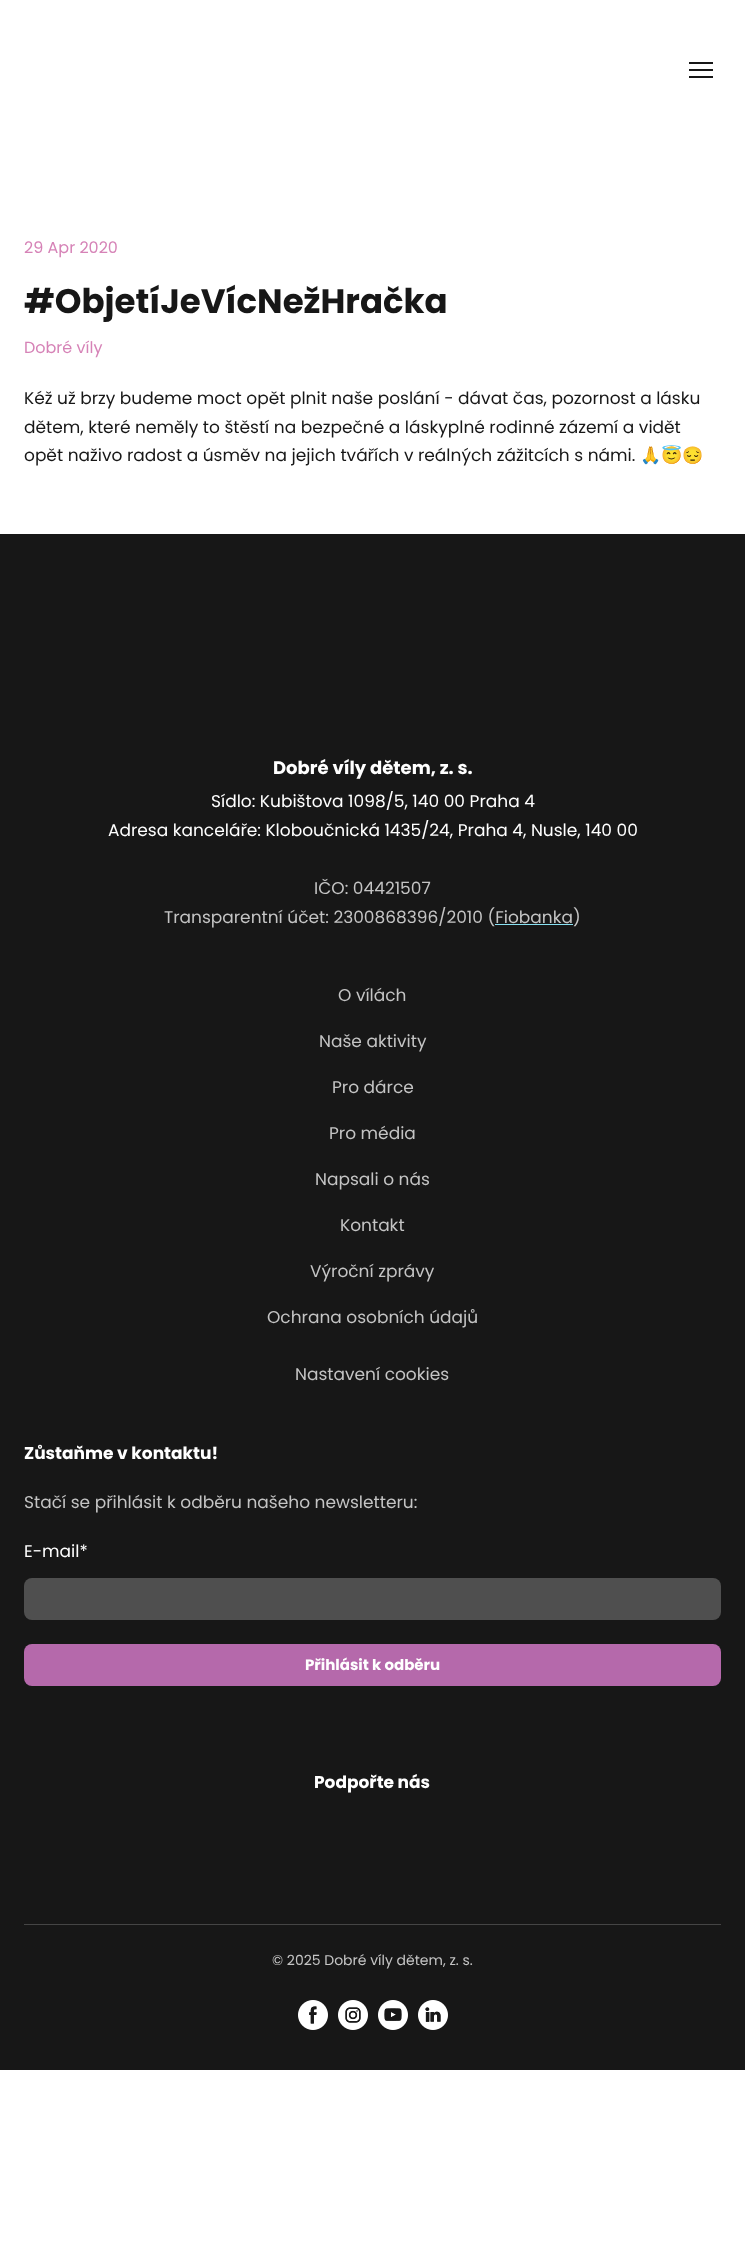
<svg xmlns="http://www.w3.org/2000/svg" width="745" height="2260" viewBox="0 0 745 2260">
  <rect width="100%" height="100%" fill="#ffffff"/>
  <rect x="689" y="62" width="24" height="2" fill="#171717"/>
  <rect x="689" y="69" width="24" height="2" fill="#171717"/>
  <rect x="689" y="76" width="24" height="2" fill="#171717"/>
  <text x="24" y="253" font-family="Poppins" font-size="16" fill="#d683b7">29 Apr 2020</text>
  <text x="24" y="313" font-family="Poppins" font-size="34" font-weight="bold" fill="#171717">#ObjetíJeVícNežHračka</text>
  <text x="24" y="353" font-family="Poppins" font-size="16" fill="#d683b7">Dobré víly</text>
  <text x="24" y="404" font-family="Poppins" font-size="17" fill="#171717">Kéž už brzy budeme moct opět plnit naše poslání - dávat čas, pozornost a lásku</text>
  <text x="24" y="433" font-family="Poppins" font-size="17" fill="#171717">dětem, které neměly to štěstí na bezpečné a láskyplné rodinné zázemí a vidět</text>
  <text x="24" y="461" font-family="Poppins" font-size="17" fill="#171717">opět naživo radost a úsměv na jejich tvářích v reálných zážitcích s námi.</text>
  <text x="640" y="461" font-family="Noto Color Emoji" font-size="17" fill="#171717">🙏😇😔</text>
  <rect x="0" y="534" width="745" height="1536" fill="#171717"/>
  <text x="273" y="774" font-family="Poppins" font-size="18" font-weight="bold" fill="#ffffff">Dobré víly dětem, z. s.</text>
  <text x="211" y="807" font-family="Poppins" font-size="17" fill="#ffffff">Sídlo: Kubištova 1098/5, 140 00 Praha 4</text>
  <text x="108" y="836" font-family="Poppins" font-size="17" fill="#ffffff">Adresa kanceláře: Kloboučnická 1435/24, Praha 4, Nusle, 140 00</text>
  <text x="314" y="894" font-family="Poppins" font-size="17" fill="#c4c4c4">IČO: 04421507</text>
  <text x="164" y="923" font-family="Poppins" font-size="17" fill="#c4c4c4">Transparentní účet: 2300868396/2010 (Fiobanka)</text>
  <rect x="495" y="924" width="78" height="1" fill="#88e1f2"/>
  <text x="338" y="1001" font-family="Poppins" font-size="17" fill="#c4c4c4">O vílách</text>
  <text x="319" y="1047" font-family="Poppins" font-size="17" fill="#c4c4c4">Naše aktivity</text>
  <text x="332" y="1093" font-family="Poppins" font-size="17" fill="#c4c4c4">Pro dárce</text>
  <text x="329" y="1139" font-family="Poppins" font-size="17" fill="#c4c4c4">Pro média</text>
  <text x="315" y="1185" font-family="Poppins" font-size="17" fill="#c4c4c4">Napsali o nás</text>
  <text x="340" y="1231" font-family="Poppins" font-size="17" fill="#c4c4c4">Kontakt</text>
  <text x="310" y="1277" font-family="Poppins" font-size="17" fill="#c4c4c4">Výroční zprávy</text>
  <text x="267" y="1323" font-family="Poppins" font-size="17" fill="#c4c4c4">Ochrana osobních údajů</text>
  <text x="295" y="1380" font-family="Poppins" font-size="17" fill="#c4c4c4">Nastavení cookies</text>
  <text x="24" y="1459" font-family="Poppins" font-size="17" font-weight="bold" fill="#ffffff">Zůstaňme v kontaktu!</text>
  <text x="24" y="1508" font-family="Poppins" font-size="17" fill="#c4c4c4">Stačí se přihlásit k odběru našeho newsletteru:</text>
  <text x="24" y="1557" font-family="Poppins" font-size="17" fill="#ffffff">E-mail*</text>
  <rect x="24" y="1578" width="697" height="42" rx="8" fill="#4f4f4f"/>
  <rect x="24" y="1644" width="697" height="42" rx="8" fill="#b569ab"/>
  <text x="305" y="1670" font-family="Poppins" font-size="15" font-weight="bold" fill="#ffffff">Přihlásit k odběru</text>
  <text x="314" y="1788" font-family="Poppins" font-size="17" font-weight="bold" fill="#ffffff">Podpořte nás</text>
  <rect x="24" y="1924" width="697" height="1" fill="#454545"/>
  <text x="272" y="1965" font-family="Poppins" font-size="14" fill="#c4c4c4">© 2025 Dobré víly dětem, z. s.</text>
  <image x="298" y="2000" width="30" height="30" href="img1.png"/>
  <image x="338" y="2000" width="30" height="30" href="img2.png"/>
  <image x="378" y="2000" width="30" height="30" href="img3.png"/>
  <image x="418" y="2000" width="30" height="30" href="img4.png"/>
</svg>
